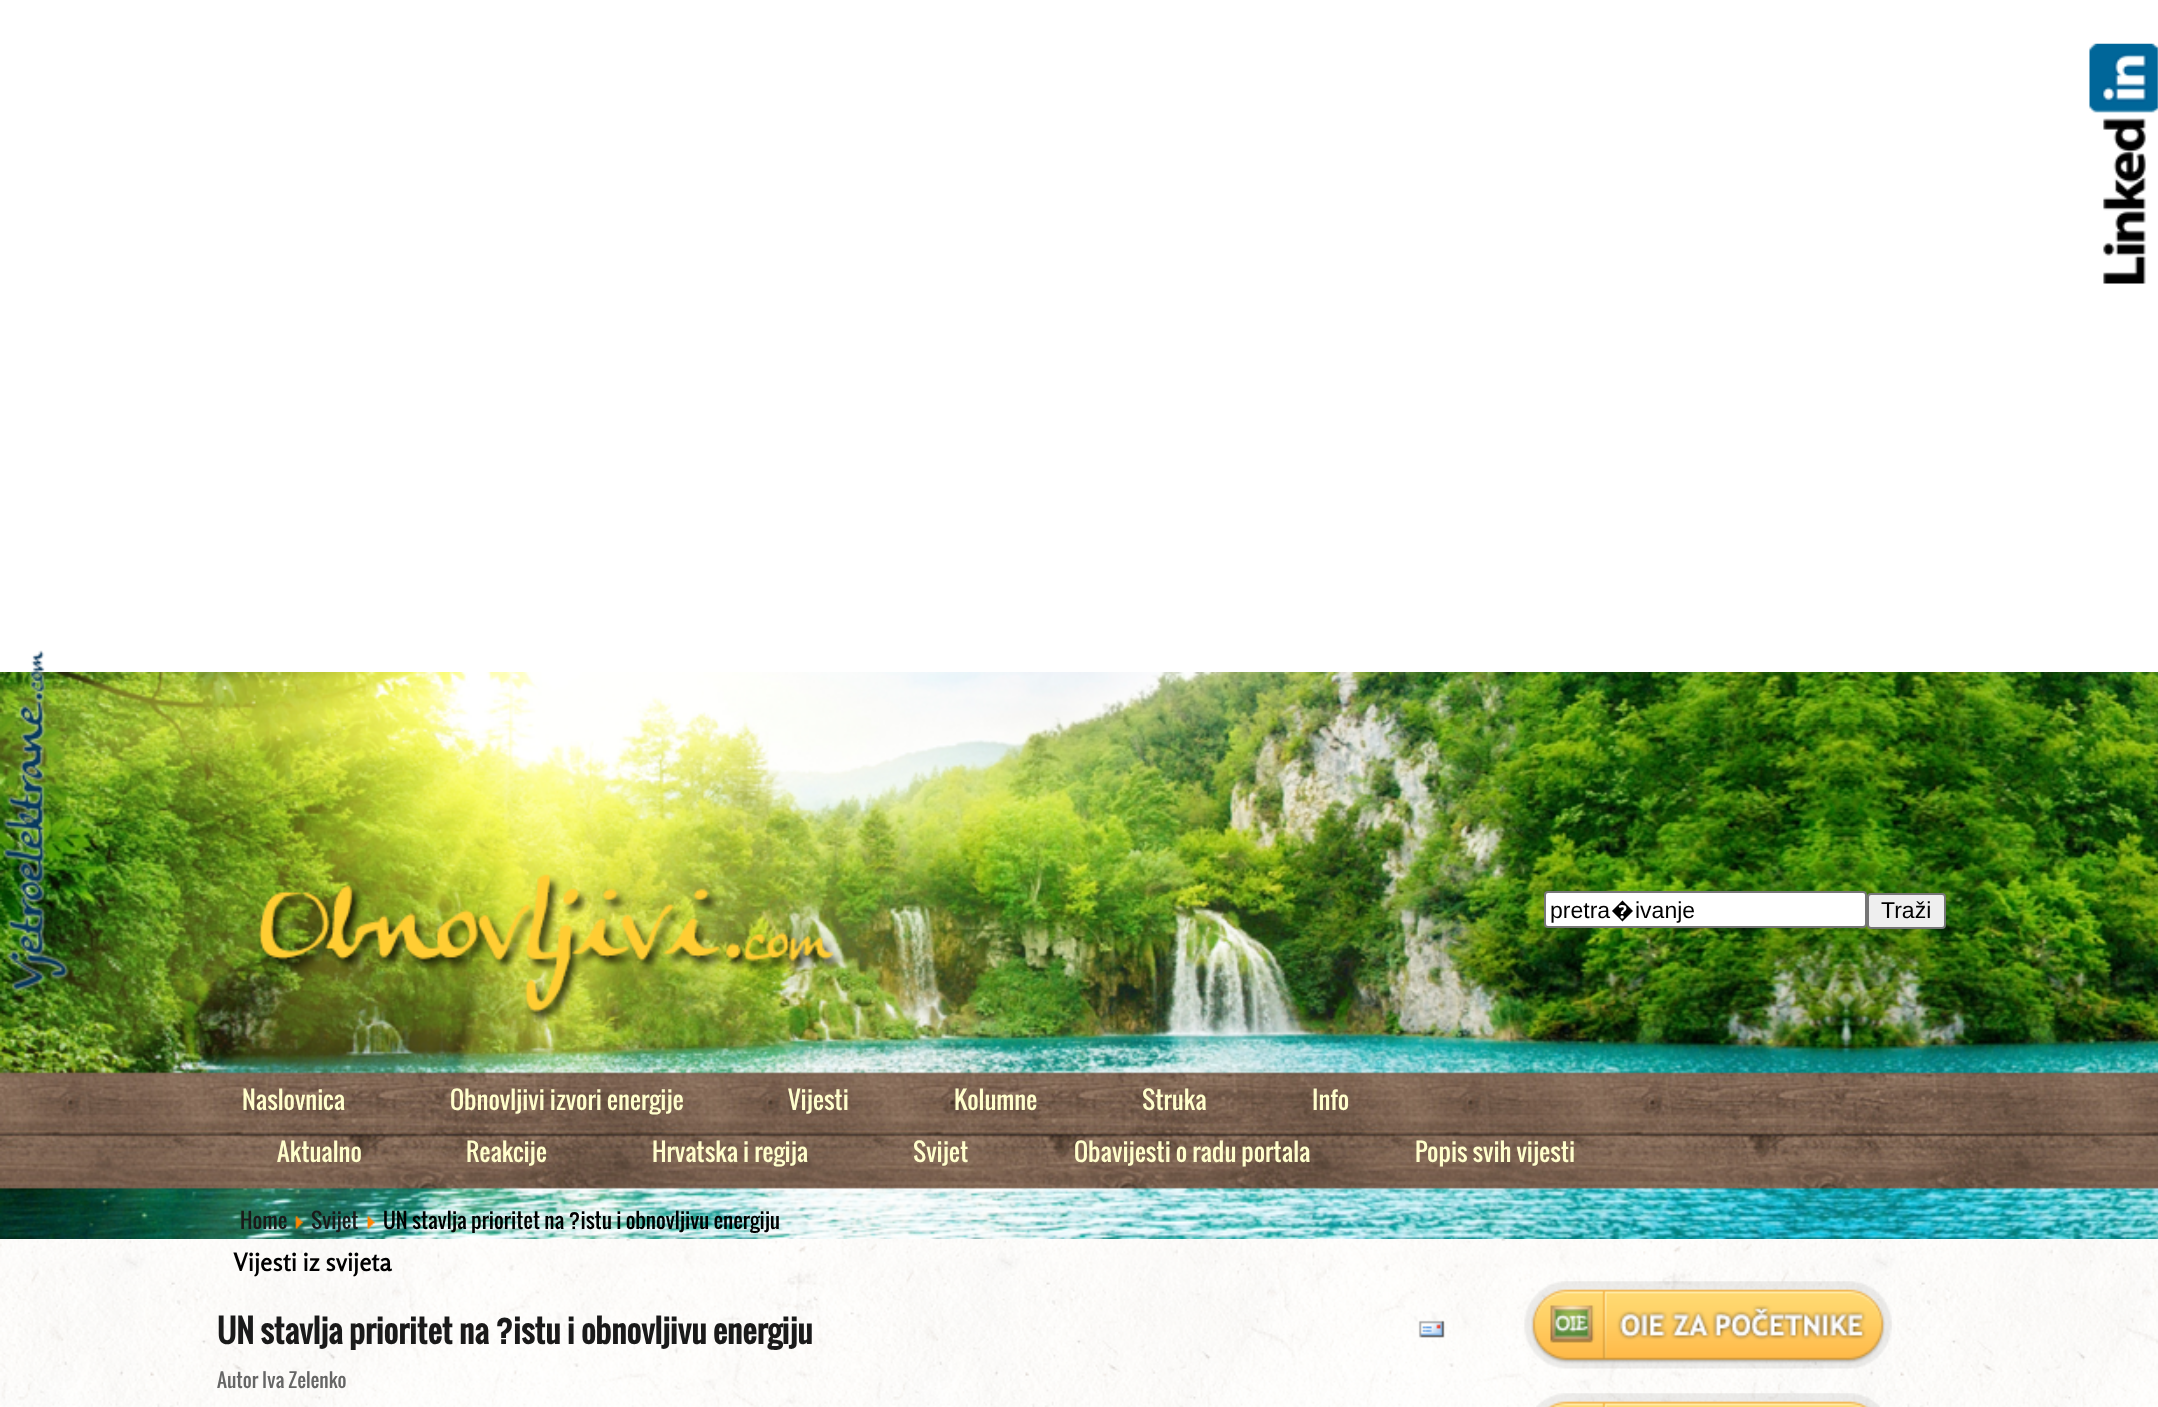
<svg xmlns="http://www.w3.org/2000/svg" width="2158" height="1407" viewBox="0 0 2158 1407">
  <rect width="100%" height="100%" fill="#ffffff"/>
  <image x="2089" y="43" width="69" height="241" href="img1.png"/>
  <image x="0" y="672" width="2158" height="567" href="img3.png"/>
  <image x="2" y="650" width="67" height="342" href="img2.png"/>
  <image x="258" y="874" width="585" height="150" href="img4.png"/>
  <rect x="1545" y="892" width="321" height="35" rx="3" fill="#ffffff" stroke="#767676" stroke-width="2"/>
  <text x="1550" y="918" font-family="Liberation Sans" font-size="23" fill="#000000">pretra</text>
  <text x="1611" y="918" font-family="Noto Sans" font-size="23" fill="#000000">�</text>
  <text x="1635" y="918" font-family="Liberation Sans" font-size="23" fill="#000000">ivanje</text>
  <rect x="1868" y="894" width="77" height="34" rx="3" fill="#efefef" stroke="#767676" stroke-width="2"/>
  <text x="1881" y="918" font-family="Liberation Sans" font-size="23" fill="#000000">Traži</text>
  <text x="242" y="1110" font-family="Oswald" font-size="24.5" fill="#ffffcc">Naslovnica</text>
  <text x="450" y="1110" font-family="Oswald" font-size="24.5" fill="#ffffcc">Obnovljivi izvori energije</text>
  <text x="788" y="1110" font-family="Oswald" font-size="24.5" fill="#ffffcc">Vijesti</text>
  <text x="954" y="1110" font-family="Oswald" font-size="24.5" fill="#ffffcc">Kolumne</text>
  <text x="1142" y="1110" font-family="Oswald" font-size="24.5" fill="#ffffcc">Struka</text>
  <text x="1312" y="1110" font-family="Oswald" font-size="24.5" fill="#ffffcc">Info</text>
  <text x="277" y="1162" font-family="Oswald" font-size="24.5" fill="#ffffcc">Aktualno</text>
  <text x="466" y="1162" font-family="Oswald" font-size="24.5" fill="#ffffcc">Reakcije</text>
  <text x="652" y="1162" font-family="Oswald" font-size="24.5" fill="#ffffcc">Hrvatska i regija</text>
  <text x="913" y="1162" font-family="Oswald" font-size="24.5" fill="#ffffcc">Svijet</text>
  <text x="1074" y="1162" font-family="Oswald" font-size="24.5" fill="#ffffcc">Obavijesti o radu portala</text>
  <text x="1415" y="1162" font-family="Oswald" font-size="24.5" fill="#ffffcc">Popis svih vijesti</text>
  <text x="240" y="1229" font-family="Oswald" font-size="21" fill="#1a1a1a">Home</text>
  <image x="295" y="1215" width="9" height="14" href="img5.png"/>
  <text x="311" y="1229" font-family="Oswald" font-size="21" fill="#1a1a1a">Svijet</text>
  <image x="367" y="1215" width="8" height="14" href="img6.png"/>
  <text x="383" y="1229" font-family="Oswald" font-size="21" fill="#000000">UN stavlja prioritet na ?istu i obnovljivu energiju</text>
  <image x="0" y="1239" width="2158" height="168" href="img7.png"/>
  <text x="233" y="1271" font-family="Rosario" font-size="24.5" font-weight="bold" fill="#000000">Vijesti iz svijeta</text>
  <text x="217" y="1344" font-family="Oswald" font-size="31.5" font-weight="bold" fill="#1a1a1a">UN stavlja prioritet na ?istu i obnovljivu energiju</text>
  <image x="1418" y="1320" width="27" height="18" href="img8.png"/>
  <text x="217" y="1388" font-family="Oswald" font-size="19.25" fill="#666666">Autor Iva Zelenko</text>
  <image x="1524" y="1281" width="368" height="88" href="img9.png"/>
  <image x="1536" y="1393" width="344" height="14" href="img10.png"/>
</svg>
